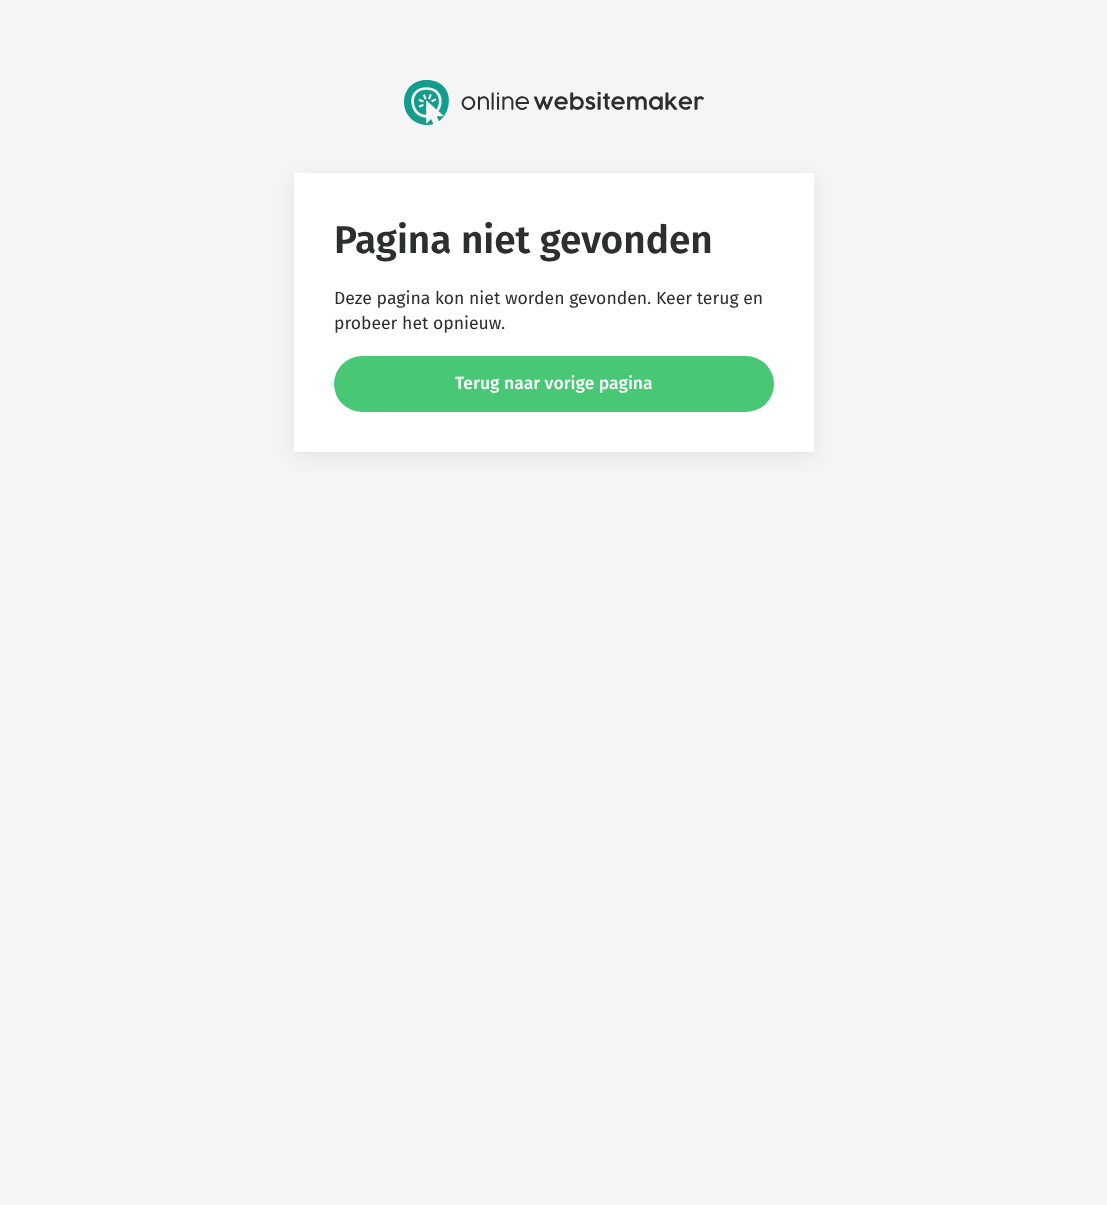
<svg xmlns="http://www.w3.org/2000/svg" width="1107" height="1205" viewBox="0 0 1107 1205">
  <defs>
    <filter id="blur1" x="-50%" y="-200%" width="200%" height="500%"><feGaussianBlur stdDeviation="10"/></filter>
  </defs>
  <rect width="100%" height="100%" fill="#f5f5f5"/>
  <image x="404" y="80" width="300" height="45" href="img1.png"/>
  <rect x="294" y="178" width="520" height="279" fill="#000000" fill-opacity="0.07" filter="url(#blur1)"/>
  <rect x="294" y="173" width="520" height="279" fill="#ffffff"/>
  <text x="334" y="253" font-family="Fira Sans" font-size="38.75" font-weight="600" fill="#2b2f2f">Pagina niet gevonden</text>
  <text x="334" y="304" font-family="Fira Sans" font-size="17.6" fill="#2b2f2f">Deze pagina kon niet worden gevonden. Keer terug en</text>
  <text x="334" y="329" font-family="Fira Sans" font-size="17.6" fill="#2b2f2f">probeer het opnieuw.</text>
  <rect x="334" y="356" width="440" height="56" rx="28" fill="#48c774"/>
  <text x="455" y="389" font-family="Fira Sans" font-size="17.6" font-weight="500" fill="#ffffff">Terug naar vorige pagina</text>
</svg>
